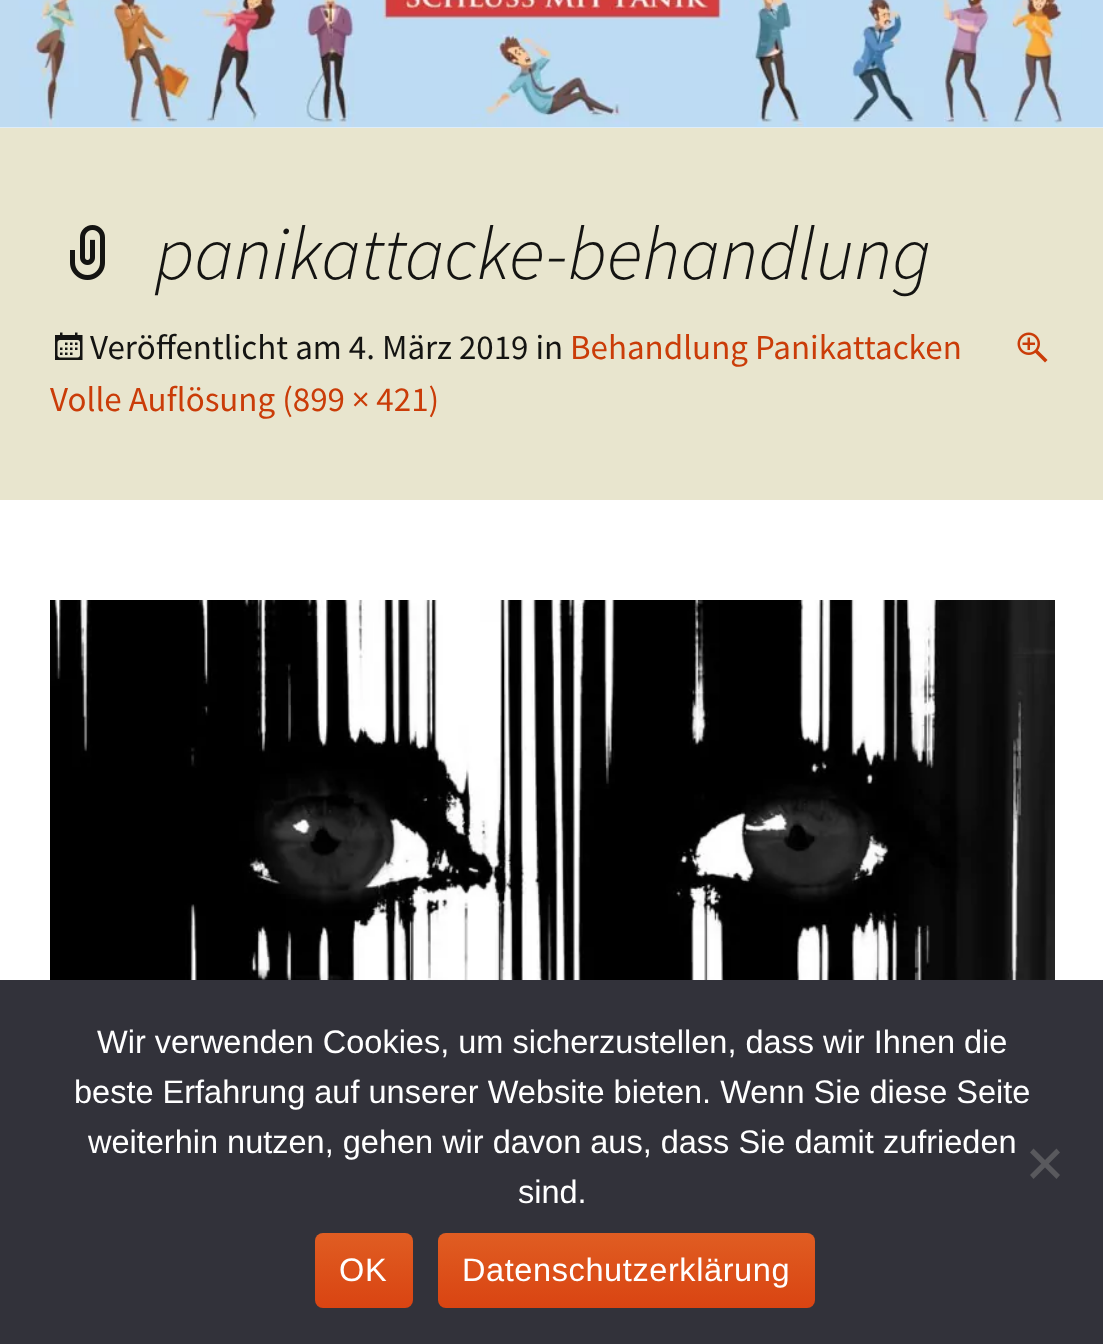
<svg xmlns="http://www.w3.org/2000/svg" width="1103" height="1344" viewBox="0 0 1103 1344">
  <defs>
    <linearGradient id="g1" gradientUnits="userSpaceOnUse" x1="364" y1="1233" x2="364" y2="1308"><stop offset="0" stop-color="#e05d22"/><stop offset="1" stop-color="#d94412"/></linearGradient>
    <linearGradient id="g2" gradientUnits="userSpaceOnUse" x1="626" y1="1233" x2="626" y2="1308"><stop offset="0" stop-color="#e05d22"/><stop offset="1" stop-color="#d94412"/></linearGradient>
  </defs>
  <rect width="100%" height="100%" fill="#ffffff"/>
  <image x="0" y="0" width="1103" height="128" href="img1.png"/>
  <rect x="0" y="128" width="1103" height="372" fill="#e8e5ce"/>
  <image x="70" y="225" width="35" height="55" href="img2.png"/>
  <text x="155" y="279" font-family="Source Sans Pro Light" font-size="75" font-weight="300" font-style="italic" fill="#141412">panikattacke-behandlung</text>
  <image x="55" y="332" width="28" height="28" href="img3.png"/>
  <text x="90" y="359" font-family="Source Sans Pro" font-size="35" fill="#141412">Veröffentlicht am 4. März 2019 in</text>
  <text x="570" y="359" font-family="Source Sans Pro" font-size="35" fill="#ca3c08">Behandlung Panikattacken</text>
  <image x="1017" y="332" width="31" height="31" href="img4.png"/>
  <text x="50" y="411" font-family="Source Sans Pro" font-size="35" fill="#ca3c08">Volle Auflösung (899 × 421)</text>
  <image x="50" y="600" width="1005" height="380" href="img5.png"/>
  <rect x="0" y="980" width="1103" height="364" fill="#32323a"/>
  <text x="97" y="1053" font-family="Liberation Sans" font-size="32.5" fill="#ffffff">Wir verwenden Cookies, um sicherzustellen, dass wir Ihnen die</text>
  <text x="74" y="1103" font-family="Liberation Sans" font-size="32.5" fill="#ffffff">beste Erfahrung auf unserer Website bieten. Wenn Sie diese Seite</text>
  <text x="88" y="1153" font-family="Liberation Sans" font-size="32.5" fill="#ffffff">weiterhin nutzen, gehen wir davon aus, dass Sie damit zufrieden</text>
  <text x="518" y="1203" font-family="Liberation Sans" font-size="32.5" fill="#ffffff">sind.</text>
  <path d="M1056.5 1148.5L1060 1152.5L1033.5 1179L1030 1175Z" fill="#59595d"/>
  <path d="M1030 1152.5L1033.5 1148.5L1060 1175L1056.5 1179Z" fill="#59595d"/>
  <rect x="315" y="1233" width="98" height="75" rx="8" fill="url(#g1)"/>
  <text x="339" y="1281" font-family="Liberation Sans" font-size="32.5" letter-spacing="0.6" fill="#ffffff">OK</text>
  <rect x="438" y="1233" width="377" height="75" rx="8" fill="url(#g2)"/>
  <text x="462" y="1281" font-family="Liberation Sans" font-size="32.5" letter-spacing="0.6" fill="#ffffff">Datenschutzerklärung</text>
</svg>
